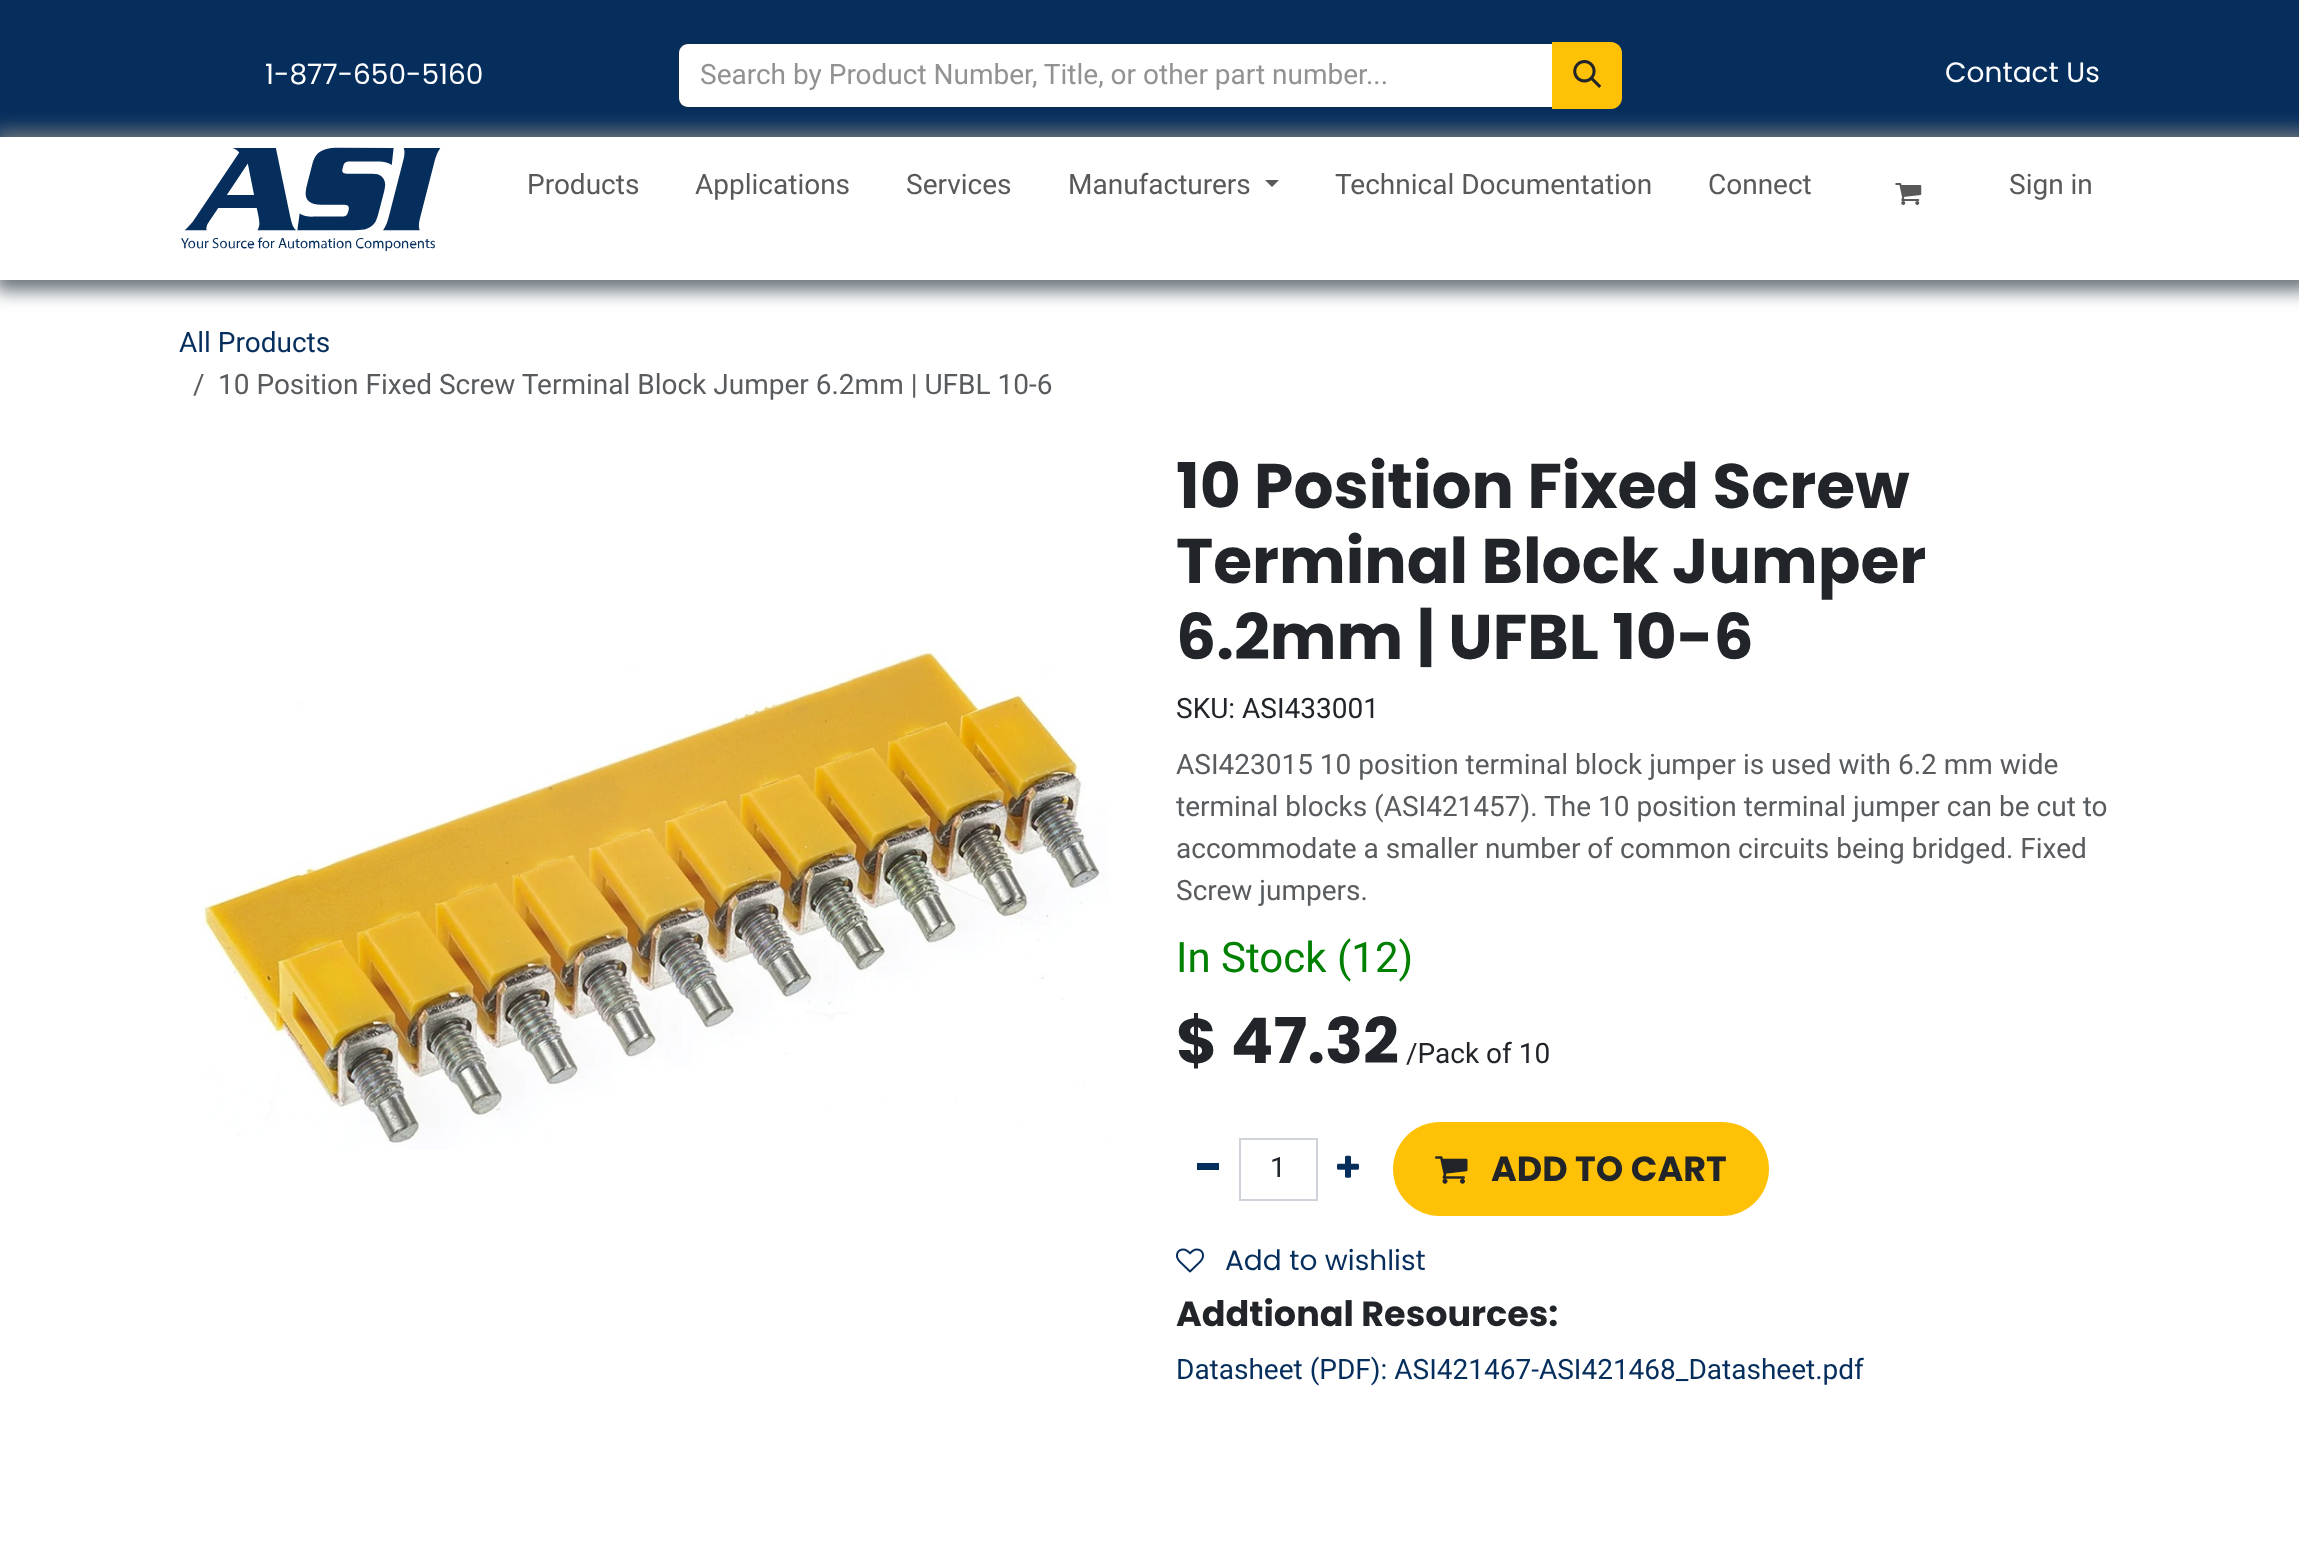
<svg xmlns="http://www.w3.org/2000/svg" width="2299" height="1544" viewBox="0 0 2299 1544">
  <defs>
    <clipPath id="clip1"><path d="M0 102H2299V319H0ZM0 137H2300V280H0Z" clip-rule="evenodd"/></clipPath>
    <filter id="blur1" x="-50%" y="-200%" width="200%" height="500%"><feGaussianBlur stdDeviation="9"/></filter>
  </defs>
  <rect width="100%" height="100%" fill="#ffffff"/>
  <rect x="0" y="0" width="2299" height="137" fill="#062e5d"/>
  <text x="265" y="84" font-family="Poppins" font-size="28" fill="#ffffff">1-877-650-5160</text>
  <path d="M688 44H1552V107H688C683 107 679 103 679 98V53C679 48 683 44 688 44Z" fill="#ffffff"/>
  <path d="M688 43H1553V108H688C682.5 108 678 103.5 678 98V53C678 47.5 682.5 43 688 43Z" fill="none" stroke="#212529" stroke-opacity="0.15" stroke-width="2"/>
  <text x="700" y="84" font-family="Roboto" font-size="28" fill="#909294">Search by Product Number, Title, or other part number...</text>
  <g clip-path="url(#clip1)">
    <rect x="-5" y="130" width="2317" height="161" fill="#6c757d" filter="url(#blur1)"/>
  </g>
  <path d="M1552 42H1611C1617 42 1622 47 1622 53V98C1622 104 1617 109 1611 109H1552Z" fill="#ffc106"/>
  <image x="1573" y="60" width="29" height="28" href="img1.png"/>
  <text x="1945" y="82" font-family="Poppins" font-size="28" fill="#ffffff">Contact Us</text>
  <image x="181" y="147" width="260" height="104" href="img2.png"/>
  <text x="527" y="194" font-family="Roboto" font-size="28" fill="#595959">Products</text>
  <text x="695" y="194" font-family="Roboto" font-size="28" fill="#595959">Applications</text>
  <text x="906" y="194" font-family="Roboto" font-size="28" fill="#595959">Services</text>
  <text x="1068" y="194" font-family="Roboto" font-size="28" fill="#595959">Manufacturers</text>
  <path d="M1265 180H1279L1272 187Z" fill="#595959"/>
  <text x="1335" y="194" font-family="Roboto" font-size="28" fill="#595959">Technical Documentation</text>
  <text x="1708" y="194" font-family="Roboto" font-size="28" fill="#595959">Connect</text>
  <image x="1895" y="183" width="27" height="22" href="img3.png"/>
  <text x="2009" y="194" font-family="Roboto" font-size="28" fill="#595959">Sign in</text>
  <text x="179" y="352" font-family="Roboto" font-size="28" fill="#062e5d">All Products</text>
  <text x="193" y="394" font-family="Roboto" font-size="28" fill="#595c5f">/</text>
  <text x="218" y="394" font-family="Roboto" font-size="28" fill="#595c5f">10 Position Fixed Screw Terminal Block Jumper 6.2mm | UFBL 10-6</text>
  <image x="201" y="649" width="908" height="501" href="img4.png"/>
  <text x="1176" y="508" font-family="Poppins" font-size="63" font-weight="bold" fill="#212529">10 Position Fixed Screw</text>
  <text x="1176" y="583" font-family="Poppins" font-size="63" font-weight="bold" fill="#212529">Terminal Block Jumper</text>
  <text x="1176" y="659" font-family="Poppins" font-size="63" font-weight="bold" fill="#212529">6.2mm | UFBL 10-6</text>
  <text x="1176" y="718" font-family="Roboto" font-size="28" fill="#212529">SKU: ASI433001</text>
  <text x="1176" y="774" font-family="Roboto" font-size="28" fill="#595c5f">ASI423015 10 position terminal block jumper is used with 6.2 mm wide</text>
  <text x="1176" y="816" font-family="Roboto" font-size="28" fill="#595c5f">terminal blocks (ASI421457). The 10 position terminal jumper can be cut to</text>
  <text x="1176" y="858" font-family="Roboto" font-size="28" fill="#595c5f">accommodate a smaller number of common circuits being bridged. Fixed</text>
  <text x="1176" y="900" font-family="Roboto" font-size="28" fill="#595c5f">Screw jumpers.</text>
  <text x="1176" y="972" font-family="Roboto" font-size="42" fill="#008000">In Stock (12)</text>
  <text x="1176" y="1063" font-family="Poppins" font-size="63" font-weight="bold" fill="#212529">$ 47.32</text>
  <text x="1406" y="1063" font-family="Roboto" font-size="28" fill="#212529">/Pack of 10</text>
  <rect x="1197" y="1163" width="22" height="7" fill="#062e5d"/>
  <rect x="1240" y="1139" width="77" height="61" fill="none" stroke="#ced4da" stroke-width="2"/>
  <text x="1270" y="1177" font-family="Roboto" font-size="28" fill="#212529">1</text>
  <image x="1337" y="1155" width="22" height="23" href="img5.png"/>
  <rect x="1393" y="1122" width="376" height="94" rx="47" fill="#ffc106"/>
  <image x="1435" y="1156" width="33" height="28" href="img6.png"/>
  <text x="1491" y="1181" font-family="Poppins" font-size="35" font-weight="bold" fill="#212529">ADD TO CART</text>
  <image x="1176" y="1248" width="28" height="25" href="img7.png"/>
  <text x="1225" y="1270" font-family="Poppins" font-size="28" fill="#062e5d">Add to wishlist</text>
  <text x="1176" y="1326" font-family="Poppins" font-size="35" font-weight="bold" fill="#212529">Addtional Resources:</text>
  <text x="1176" y="1379" font-family="Roboto" font-size="28" fill="#062e5d">Datasheet (PDF): ASI421467-ASI421468_Datasheet.pdf</text>
</svg>
